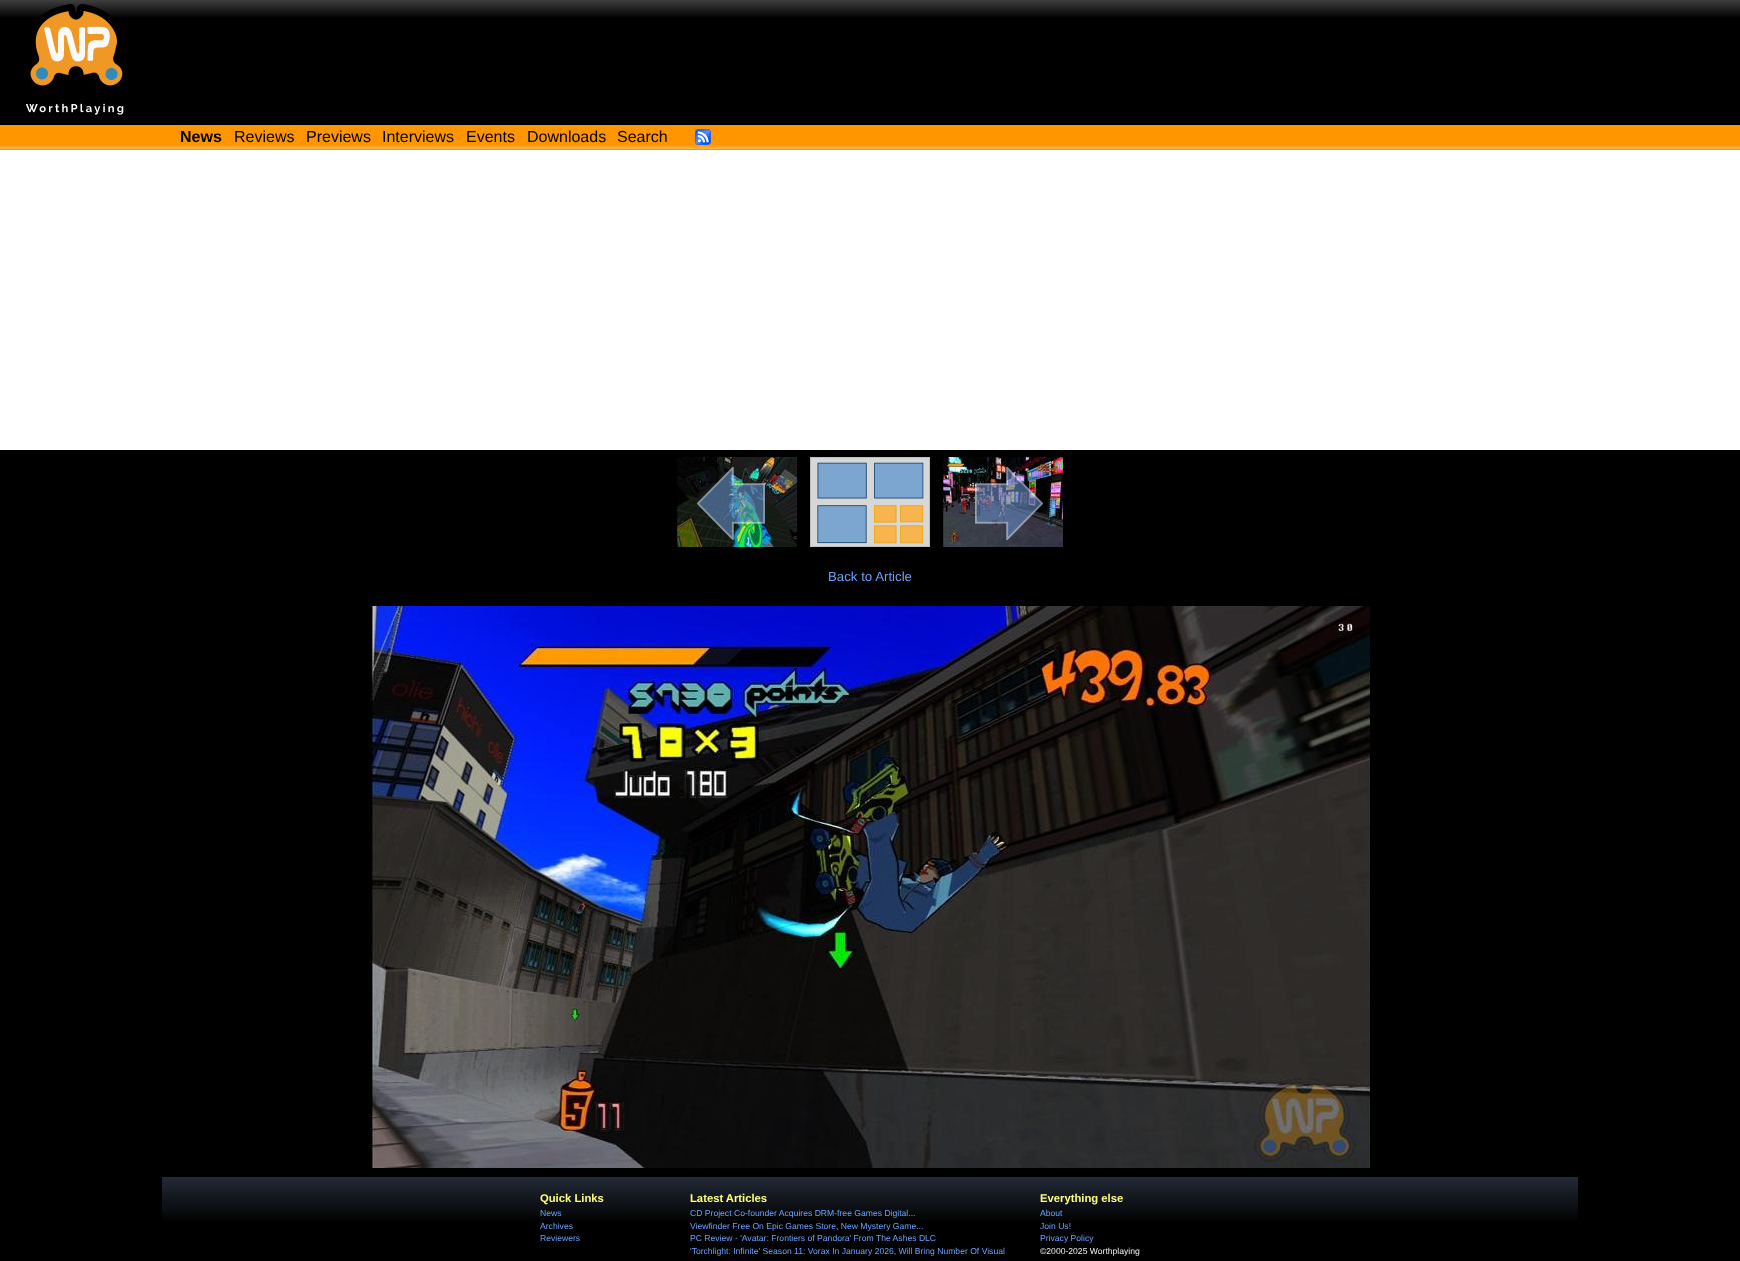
<svg xmlns="http://www.w3.org/2000/svg" width="1740" height="1261" viewBox="0 0 1740 1261">
  <rect width="100%" height="100%" fill="#ffffff"/>
  <rect x="0" y="17" width="1740" height="108" fill="#000000"/>
  <image x="0" y="0" width="1740" height="17" href="img1.png"/>
  <image x="25" y="4" width="99" height="111" href="img2.png"/>
  <rect x="0" y="125" width="1740" height="25" fill="#ff9600"/>
  <image x="0" y="145" width="1740" height="4" href="img3.png"/>
  <text x="180" y="142" font-family="Liberation Sans" font-size="16" font-weight="bold" fill="#000000">News</text>
  <text x="234" y="142" font-family="Liberation Sans" font-size="16" fill="#000000">Reviews</text>
  <text x="306" y="142" font-family="Liberation Sans" font-size="16" fill="#000000">Previews</text>
  <text x="382" y="142" font-family="Liberation Sans" font-size="16" fill="#000000">Interviews</text>
  <text x="466" y="142" font-family="Liberation Sans" font-size="16" fill="#000000">Events</text>
  <text x="527" y="142" font-family="Liberation Sans" font-size="16" fill="#000000">Downloads</text>
  <text x="617" y="142" font-family="Liberation Sans" font-size="16" fill="#000000">Search</text>
  <image x="695" y="129" width="16" height="16" href="img4.png"/>
  <rect x="0" y="450" width="1740" height="811" fill="#000000"/>
  <image x="677" y="457" width="120" height="90" href="img5.png"/>
  <image x="697" y="467" width="68" height="73" href="img6.png"/>
  <image x="810" y="457" width="120" height="90" href="img7.png"/>
  <image x="943" y="457" width="120" height="90" href="img8.png"/>
  <image x="975" y="467" width="68" height="73" href="img9.png"/>
  <text x="828" y="581" font-family="Liberation Sans" font-size="13.25" fill="#66a3ff">Back to Article</text>
  <image x="370" y="606" width="1000" height="562" href="img10.png"/>
  <image x="162" y="1177" width="1416" height="44" href="img11.png"/>
  <text x="540" y="1202" font-family="Liberation Sans" font-size="11.25" font-weight="bold" fill="#ffff76">Quick Links</text>
  <text x="540" y="1216" font-family="Liberation Sans" font-size="8.6" fill="#66a3ff">News</text>
  <text x="540" y="1229" font-family="Liberation Sans" font-size="8.6" fill="#66a3ff">Archives</text>
  <text x="540" y="1241" font-family="Liberation Sans" font-size="8.6" fill="#66a3ff">Reviewers</text>
  <text x="690" y="1202" font-family="Liberation Sans" font-size="11.25" font-weight="bold" fill="#ffff76">Latest Articles</text>
  <text x="690" y="1216" font-family="Liberation Sans" font-size="8.6" fill="#66a3ff">CD Project Co-founder Acquires DRM-free Games Digital...</text>
  <text x="690" y="1229" font-family="Liberation Sans" font-size="8.6" fill="#66a3ff">Viewfinder Free On Epic Games Store, New Mystery Game...</text>
  <text x="690" y="1241" font-family="Liberation Sans" font-size="8.6" fill="#66a3ff">PC Review - 'Avatar: Frontiers of Pandora' From The Ashes DLC</text>
  <text x="690" y="1254" font-family="Liberation Sans" font-size="8.6" fill="#66a3ff">'Torchlight: Infinite' Season 11: Vorax In January 2026, Will Bring Number Of Visual</text>
  <text x="1040" y="1202" font-family="Liberation Sans" font-size="11.25" font-weight="bold" fill="#ffff76">Everything else</text>
  <text x="1040" y="1216" font-family="Liberation Sans" font-size="8.6" fill="#66a3ff">About</text>
  <text x="1040" y="1229" font-family="Liberation Sans" font-size="8.6" fill="#66a3ff">Join Us!</text>
  <text x="1040" y="1241" font-family="Liberation Sans" font-size="8.6" fill="#66a3ff">Privacy Policy</text>
  <text x="1040" y="1254" font-family="Liberation Sans" font-size="8.6" fill="#f0f0f0">©2000-2025 Worthplaying</text>
</svg>
